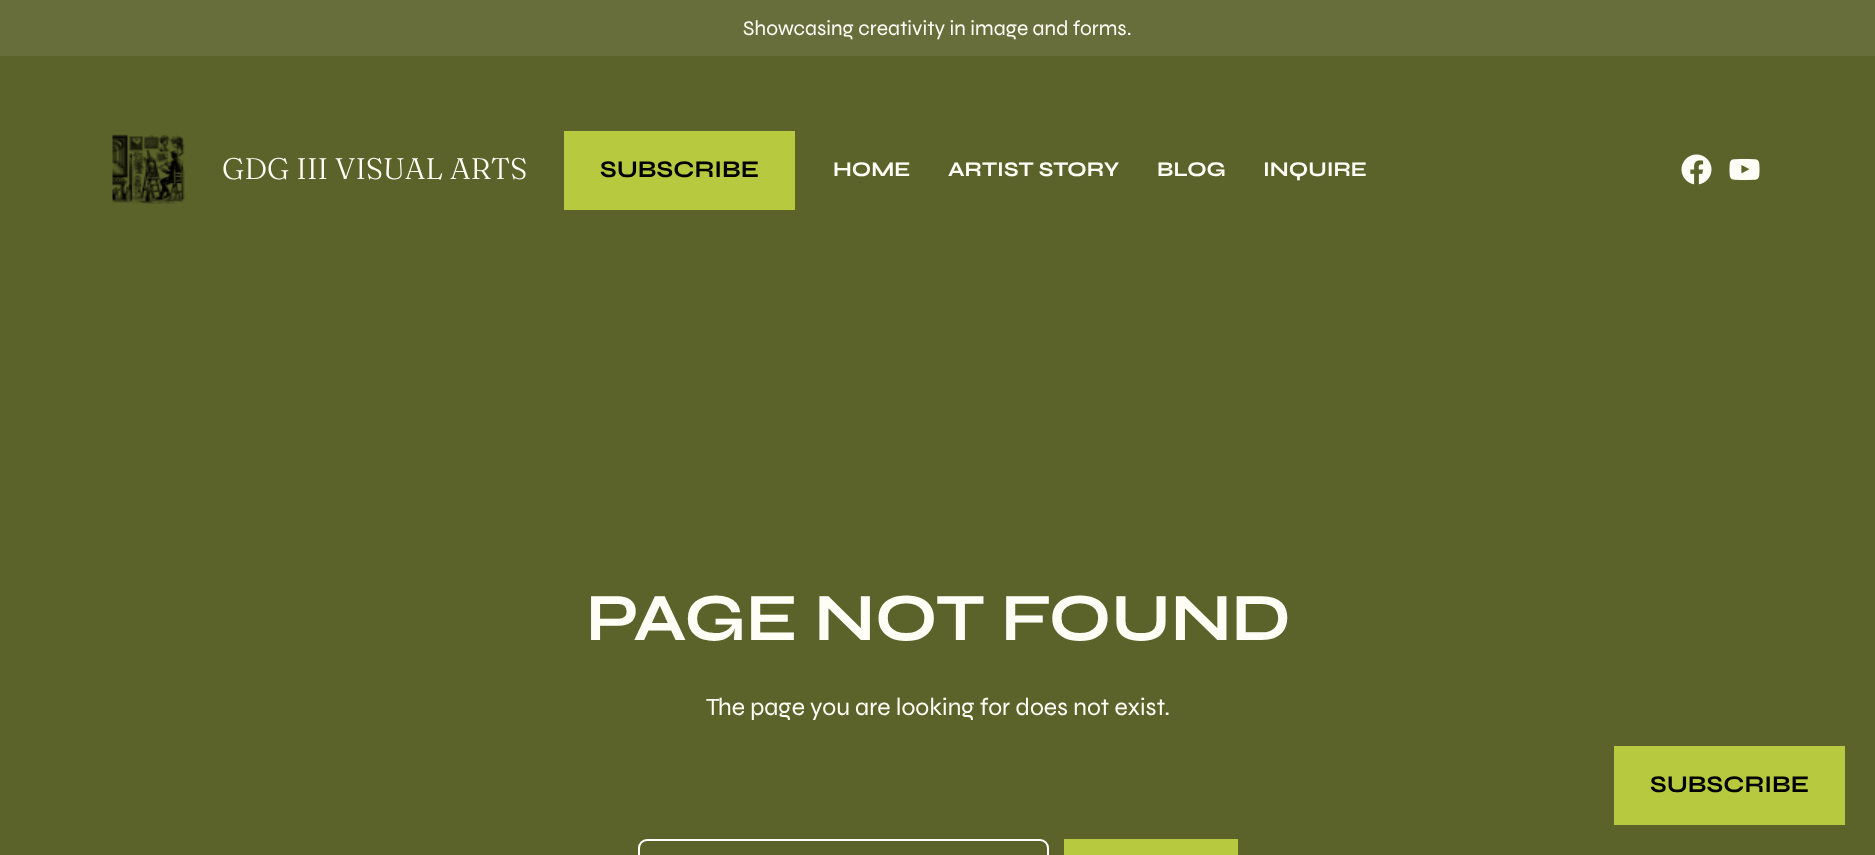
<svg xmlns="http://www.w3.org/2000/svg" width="1875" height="855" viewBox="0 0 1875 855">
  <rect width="100%" height="100%" fill="#5c632a"/>
  <rect x="0" y="0" width="1875" height="56" fill="#676d3b"/>
  <text x="743" y="35" font-family="Syne" font-size="21" fill="#fefef7">Showcasing creativity in image and forms.</text>
  <image x="112" y="134" width="73" height="70" href="img1.png"/>
  <text x="222" y="179" font-family="Fraunces" font-size="29.75" font-weight="300" fill="#fefef7">GDG III VISUAL ARTS</text>
  <rect x="564" y="131" width="231" height="79" fill="#b6c93f"/>
  <text x="600" y="177" font-family="Syne" font-size="24" font-weight="bold" fill="#000000">SUBSCRIBE</text>
  <text x="833" y="176" font-family="Syne" font-size="21" font-weight="bold" fill="#fefef7">HOME</text>
  <text x="948" y="176" font-family="Syne" font-size="21" font-weight="bold" fill="#fefef7">ARTIST STORY</text>
  <text x="1157" y="176" font-family="Syne" font-size="21" font-weight="bold" fill="#fefef7">BLOG</text>
  <text x="1263" y="176" font-family="Syne" font-size="21" font-weight="bold" fill="#fefef7">INQUIRE</text>
  <image x="1681" y="154" width="31" height="31" href="img2.png"/>
  <image x="1729" y="158" width="31" height="23" href="img3.png"/>
  <text x="586" y="640" font-family="Syne" font-size="67.5" font-weight="bold" fill="#fefef7">PAGE NOT FOUND</text>
  <text x="706" y="715" font-family="Syne" font-size="24.75" fill="#fefef7">The page you are looking for does not exist.</text>
  <rect x="639" y="840" width="409" height="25" rx="8" fill="none" stroke="#ffffff" stroke-width="2"/>
  <rect x="1064" y="839" width="174" height="16" fill="#b6c93f"/>
  <rect x="1614" y="746" width="231" height="79" fill="#b6c93f"/>
  <text x="1650" y="792" font-family="Syne" font-size="24" font-weight="bold" fill="#000000">SUBSCRIBE</text>
</svg>
